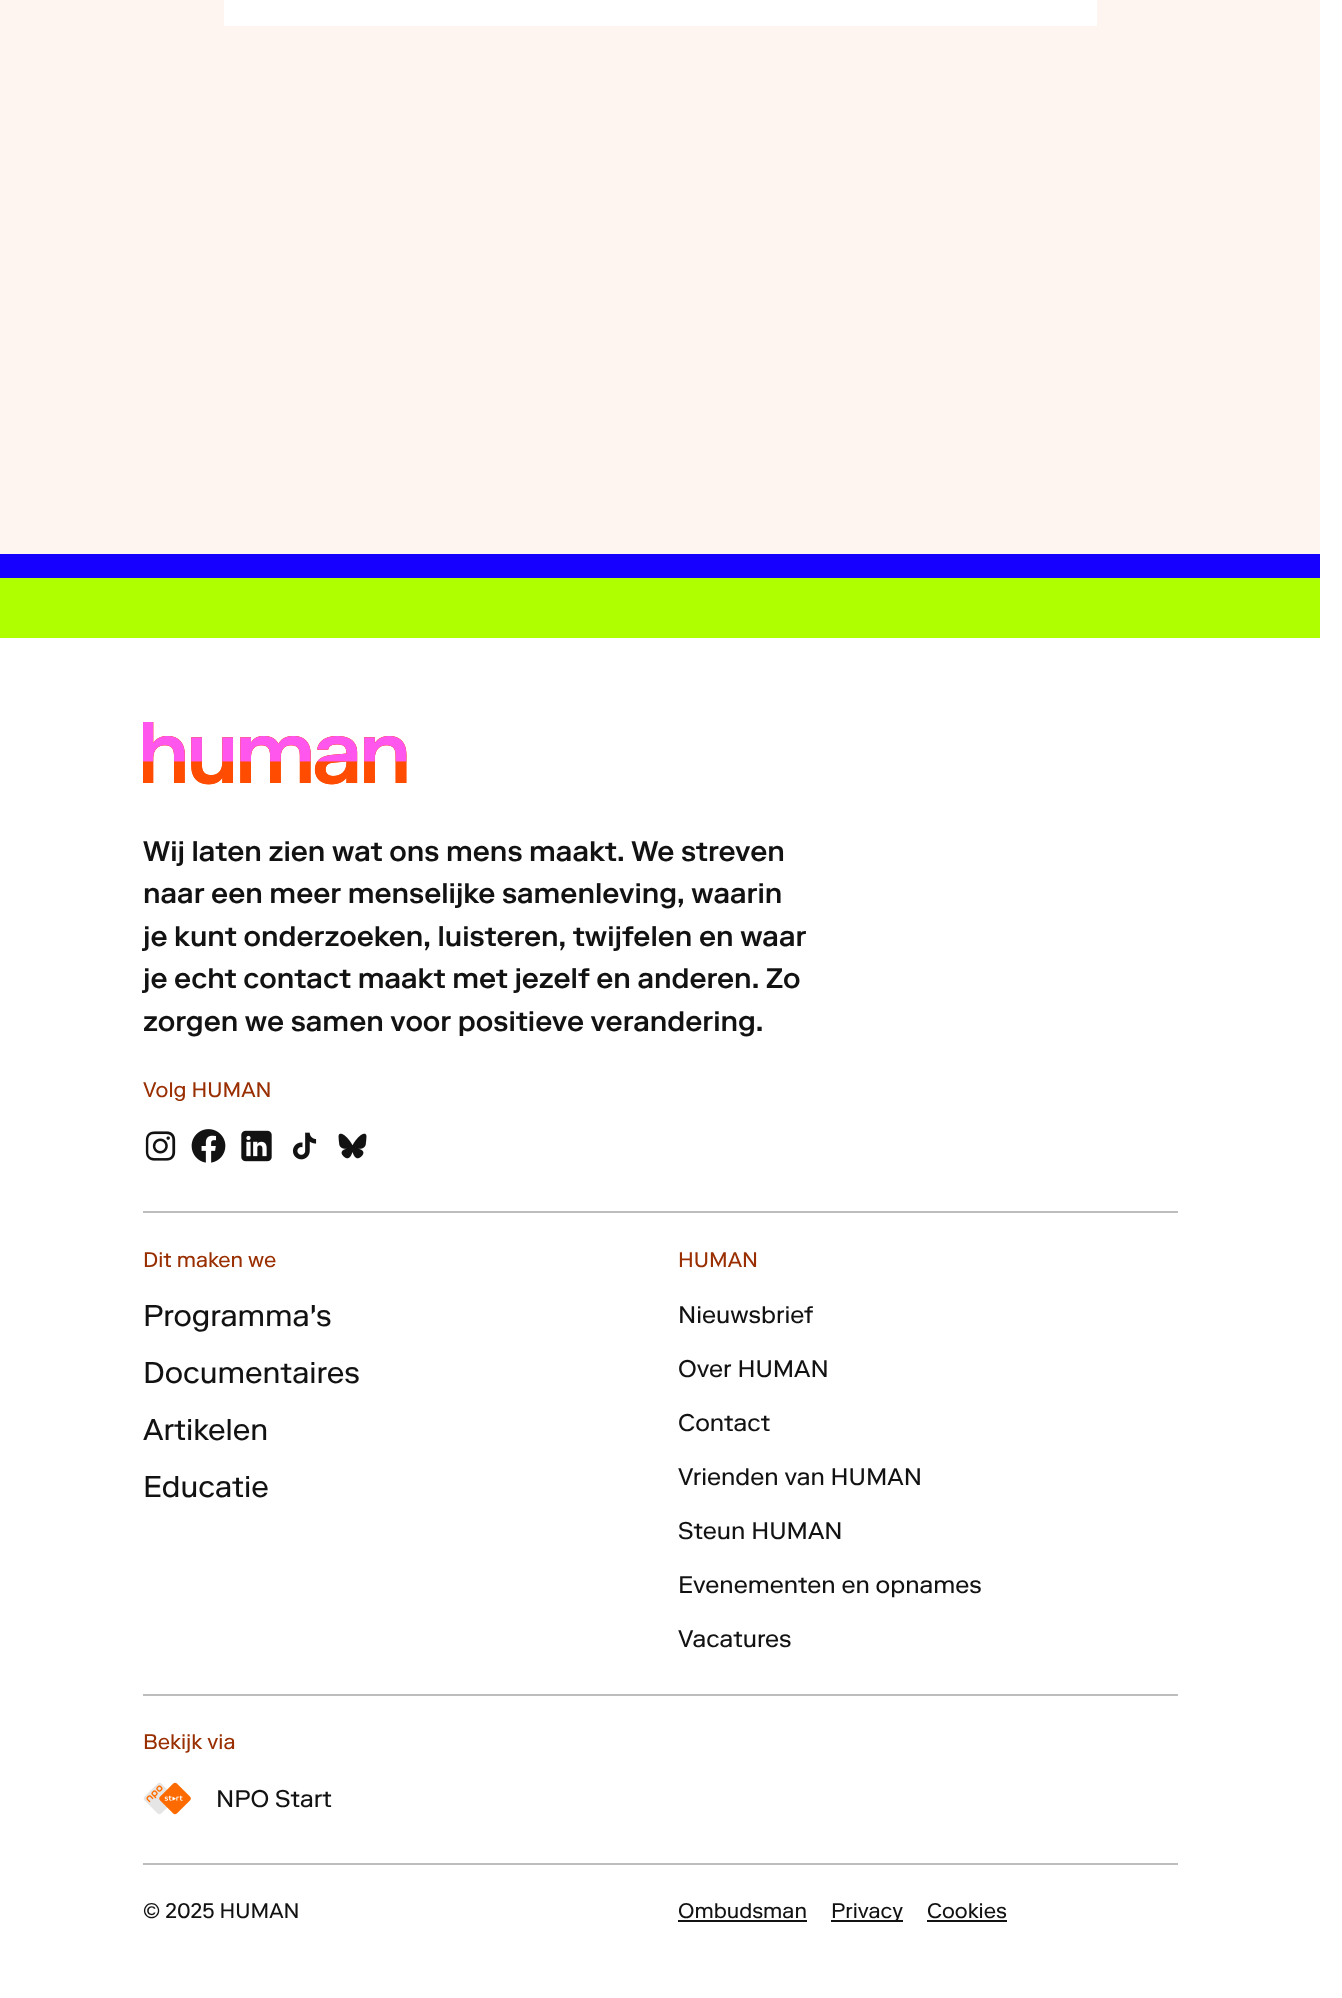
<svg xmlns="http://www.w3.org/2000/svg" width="1342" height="1998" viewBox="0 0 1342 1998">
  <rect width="100%" height="100%" fill="#ffffff"/>
  <rect x="0" y="0" width="1320" height="554" fill="#fef5f1"/>
  <rect x="224" y="0" width="873" height="26" fill="#ffffff"/>
  <rect x="0" y="578" width="1320" height="60" fill="#afff00"/>
  <rect x="0" y="554" width="1320" height="24" fill="#1600ff"/>
  <image x="143" y="722" width="264" height="63" href="img1.png"/>
  <text x="143" y="861" font-family="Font" font-size="28.4" font-weight="500" fill="#121212">Wij laten zien wat ons mens maakt. We streven</text>
  <text x="143" y="903" font-family="Font" font-size="28.4" font-weight="500" fill="#121212">naar een meer menselijke samenleving, waarin</text>
  <text x="143" y="946" font-family="Font" font-size="28.4" font-weight="500" fill="#121212">je kunt onderzoeken, luisteren, twijfelen en waar</text>
  <text x="143" y="988" font-family="Font" font-size="28.4" font-weight="500" fill="#121212">je echt contact maakt met jezelf en anderen. Zo</text>
  <text x="143" y="1031" font-family="Font" font-size="28.4" font-weight="500" fill="#121212">zorgen we samen voor positieve verandering.</text>
  <text x="143" y="1097" font-family="Font" font-size="21" fill="#992e00">Volg HUMAN</text>
  <image x="145" y="1131" width="31" height="30" href="img2.png"/>
  <image x="191" y="1129" width="35" height="34" href="img3.png"/>
  <image x="241" y="1130" width="31" height="32" href="img4.png"/>
  <image x="292" y="1132" width="25" height="28" href="img5.png"/>
  <image x="338" y="1133" width="29" height="26" href="img6.png"/>
  <rect x="143" y="1211" width="1035" height="2" fill="#bdbdbd"/>
  <text x="143" y="1267" font-family="Font" font-size="21" fill="#992e00">Dit maken we</text>
  <text x="143" y="1326" font-family="Font" font-size="30" fill="#121212">Programma's</text>
  <text x="143" y="1383" font-family="Font" font-size="30" fill="#121212">Documentaires</text>
  <text x="143" y="1440" font-family="Font" font-size="30" fill="#121212">Artikelen</text>
  <text x="143" y="1497" font-family="Font" font-size="30" fill="#121212">Educatie</text>
  <text x="678" y="1267" font-family="Font" font-size="21" fill="#992e00">HUMAN</text>
  <text x="678" y="1323" font-family="Font" font-size="24" fill="#121212">Nieuwsbrief</text>
  <text x="678" y="1377" font-family="Font" font-size="24" fill="#121212">Over HUMAN</text>
  <text x="678" y="1431" font-family="Font" font-size="24" fill="#121212">Contact</text>
  <text x="678" y="1485" font-family="Font" font-size="24" fill="#121212">Vrienden van HUMAN</text>
  <text x="678" y="1539" font-family="Font" font-size="24" fill="#121212">Steun HUMAN</text>
  <text x="678" y="1593" font-family="Font" font-size="24" fill="#121212">Evenementen en opnames</text>
  <text x="678" y="1647" font-family="Font" font-size="24" fill="#121212">Vacatures</text>
  <rect x="143" y="1694" width="1035" height="2" fill="#bdbdbd"/>
  <text x="143" y="1749" font-family="Font" font-size="21" fill="#992e00">Bekijk via</text>
  <image x="143" y="1782" width="48" height="33" href="img7.png"/>
  <text x="216" y="1807" font-family="Font" font-size="24" fill="#121212">NPO Start</text>
  <rect x="143" y="1863" width="1035" height="2" fill="#bdbdbd"/>
  <text x="143" y="1918" font-family="Font" font-size="21" fill="#121212">© 2025 HUMAN</text>
  <text x="678" y="1918" font-family="Font" font-size="21" fill="#121212">Ombudsman</text>
  <rect x="678" y="1920" width="129" height="2" fill="#121212"/>
  <rect x="831" y="1920" width="72" height="2" fill="#121212"/>
  <text x="831" y="1918" font-family="Font" font-size="21" fill="#121212">Privacy</text>
  <text x="927" y="1918" font-family="Font" font-size="21" fill="#121212">Cookies</text>
  <rect x="927" y="1920" width="80" height="2" fill="#121212"/>
</svg>
